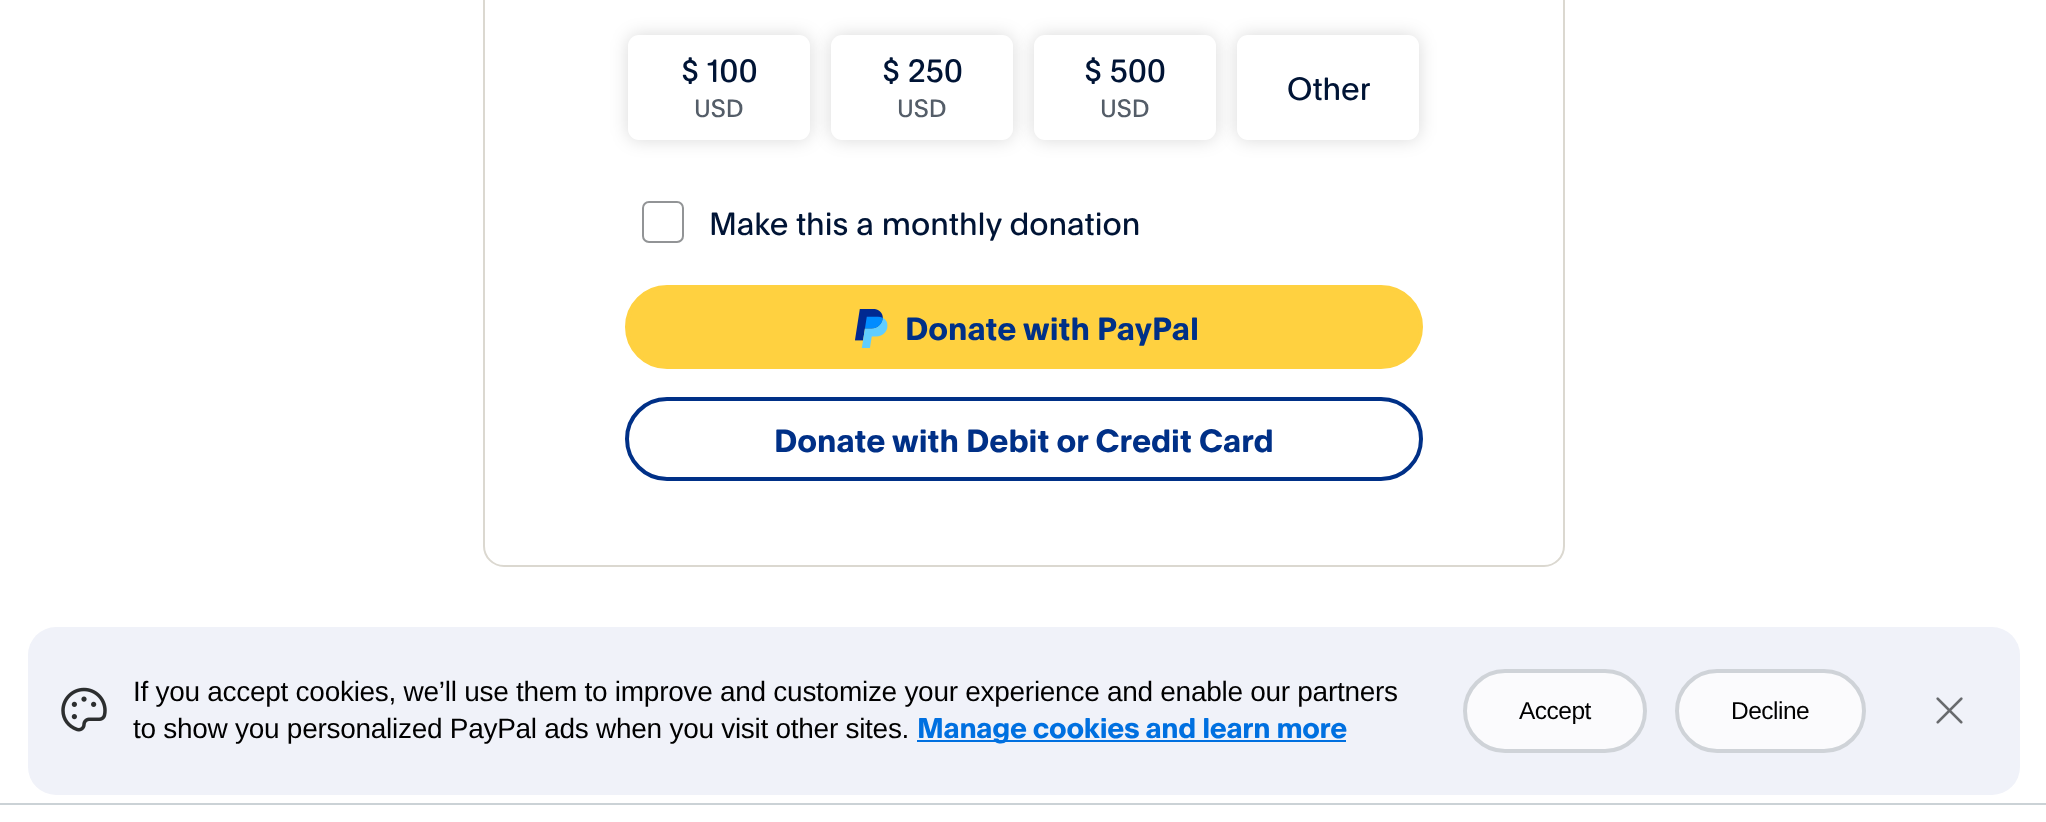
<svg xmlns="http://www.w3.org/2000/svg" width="2046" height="822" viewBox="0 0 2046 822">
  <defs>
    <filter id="blur1" x="-50%" y="-200%" width="200%" height="500%"><feGaussianBlur stdDeviation="9"/></filter>
  </defs>
  <rect width="100%" height="100%" fill="#ffffff"/>
  <rect x="484" y="-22" width="1080" height="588" rx="20" fill="none" stroke="#dbd8d0" stroke-width="2"/>
  <rect x="628" y="35" width="182" height="105" rx="11" fill="#000000" fill-opacity="0.15" filter="url(#blur1)"/>
  <rect x="628" y="35" width="182" height="105" rx="11" fill="#ffffff"/>
  <text x="681" y="82" font-family="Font" font-size="31.5" fill="#001435">$ 100</text>
  <text x="694" y="117" font-family="Font" font-size="24.5" fill="#545d68">USD</text>
  <rect x="831" y="35" width="182" height="105" rx="11" fill="#000000" fill-opacity="0.15" filter="url(#blur1)"/>
  <rect x="831" y="35" width="182" height="105" rx="11" fill="#ffffff"/>
  <text x="882" y="82" font-family="Font" font-size="31.5" fill="#001435">$ 250</text>
  <text x="897" y="117" font-family="Font" font-size="24.5" fill="#545d68">USD</text>
  <rect x="1034" y="35" width="182" height="105" rx="11" fill="#000000" fill-opacity="0.15" filter="url(#blur1)"/>
  <rect x="1034" y="35" width="182" height="105" rx="11" fill="#ffffff"/>
  <text x="1084" y="82" font-family="Font" font-size="31.5" fill="#001435">$ 500</text>
  <text x="1100" y="117" font-family="Font" font-size="24.5" fill="#545d68">USD</text>
  <rect x="1237" y="35" width="182" height="105" rx="11" fill="#000000" fill-opacity="0.15" filter="url(#blur1)"/>
  <rect x="1237" y="35" width="182" height="105" rx="11" fill="#ffffff"/>
  <text x="1287" y="100" font-family="Font" font-size="31.5" fill="#001435">Other</text>
  <rect x="643" y="202" width="40" height="40" rx="6" fill="none" stroke="#929496" stroke-width="2"/>
  <text x="709" y="235" font-family="Font" font-size="31.5" fill="#001435">Make this a monthly donation</text>
  <rect x="627" y="287" width="794" height="80" rx="40" fill="#ffd140" stroke="#ffd140" stroke-width="4"/>
  <image x="855" y="309" width="33" height="39" href="img1.png"/>
  <text x="905" y="340" font-family="Font" font-size="31.5" font-weight="bold" fill="#003087">Donate with PayPal</text>
  <rect x="627" y="399" width="794" height="80" rx="40" fill="none" stroke="#003087" stroke-width="4"/>
  <text x="774" y="452" font-family="Font" font-size="31.5" font-weight="bold" fill="#003087">Donate with Debit or Credit Card</text>
  <rect x="0" y="803" width="2046" height="2" fill="#cbd2d6"/>
  <rect x="28" y="627" width="1992" height="168" rx="28" fill="#f0f2f9"/>
  <image x="61" y="687" width="46" height="45" href="img2.png"/>
  <text x="133" y="701" font-family="Liberation Sans" font-size="28" letter-spacing="-0.28" fill="#000000">If you accept cookies, we’ll use them to improve and customize your experience and enable our partners</text>
  <text x="133" y="738" font-family="Liberation Sans" font-size="28" letter-spacing="-0.28" fill="#000000">to show you personalized PayPal ads when you visit other sites.</text>
  <rect x="917" y="740" width="429" height="2" fill="#0070e0"/>
  <text x="917" y="738" font-family="Font" font-size="28" font-weight="bold" letter-spacing="-0.28" fill="#0070e0">Manage cookies and learn more</text>
  <rect x="1465" y="671" width="180" height="80" rx="40" fill="#fbfbfd" stroke="#cfd3d8" stroke-width="4"/>
  <text x="1519" y="719" font-family="Liberation Sans" font-size="24.5" letter-spacing="-0.5" fill="#000000">Accept</text>
  <rect x="1677" y="671" width="187" height="80" rx="40" fill="#fbfbfd" stroke="#cfd3d8" stroke-width="4"/>
  <text x="1731" y="719" font-family="Liberation Sans" font-size="24.5" letter-spacing="-0.5" fill="#000000">Decline</text>
  <image x="1936" y="697" width="27" height="27" href="img3.png"/>
</svg>
